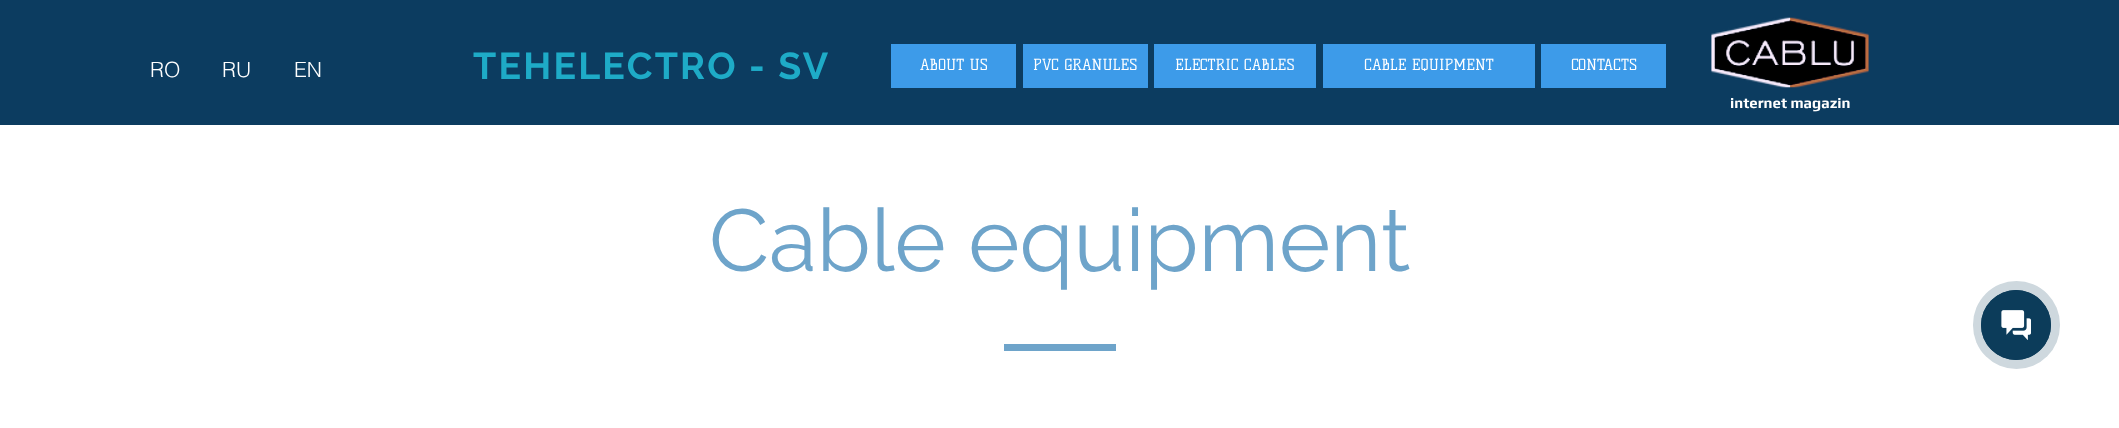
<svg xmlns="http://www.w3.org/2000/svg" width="2119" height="428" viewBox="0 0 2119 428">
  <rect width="100%" height="100%" fill="#ffffff"/>
  <rect x="0" y="0" width="2119" height="125" fill="#0c3c60"/>
  <text x="150" y="77" font-family="helvetica" font-size="21" font-weight="300" fill="#ffffff">RO</text>
  <text x="222" y="77" font-family="helvetica" font-size="21" font-weight="300" fill="#ffffff">RU</text>
  <text x="294" y="77" font-family="helvetica" font-size="21" font-weight="300" fill="#ffffff">EN</text>
  <text x="473" y="79" font-family="Raleway" font-size="37.5" font-weight="bold" letter-spacing="2.25" fill="#1eabc7">TEHELECTRO - SV</text>
  <image x="1711" y="17" width="158" height="71" href="img1.png"/>
  <text x="1730" y="108" font-family="Play" font-size="15" font-weight="bold" fill="#ffffff">internet magazin</text>
  <rect x="891" y="44" width="125" height="44" fill="#3d9be9"/>
  <text x="920" y="70" font-family="Kelly Slab" font-size="15" fill="#ffffff">ABOUT US</text>
  <rect x="1023" y="44" width="125" height="44" fill="#3d9be9"/>
  <text x="1033" y="70" font-family="Kelly Slab" font-size="15" fill="#ffffff">PVC GRANULES</text>
  <rect x="1154" y="44" width="162" height="44" fill="#3d9be9"/>
  <text x="1175" y="70" font-family="Kelly Slab" font-size="15" fill="#ffffff">ELECTRIC CABLES</text>
  <rect x="1323" y="44" width="212" height="44" fill="#3d9be9"/>
  <text x="1364" y="70" font-family="Kelly Slab" font-size="15" fill="#ffffff">CABLE EQUIPMENT</text>
  <rect x="1541" y="44" width="125" height="44" fill="#3d9be9"/>
  <text x="1571" y="70" font-family="Kelly Slab" font-size="15" fill="#ffffff">CONTACTS</text>
  <text x="709" y="271" font-family="Raleway" font-size="87.5" fill="#6ea4ca">Cable equipment</text>
  <rect x="1004" y="344" width="112" height="7" fill="#6ea4ca"/>
  <rect x="1973" y="281" width="87" height="88" rx="43.5" fill="#ced8de"/>
  <circle cx="2016" cy="325" r="34.5" fill="none" stroke="#0c3c5a"/>
  <circle cx="2016" cy="325" r="35" fill="#0c3c5a"/>
  <image x="2001" y="310" width="30" height="30" href="img2.png"/>
</svg>
